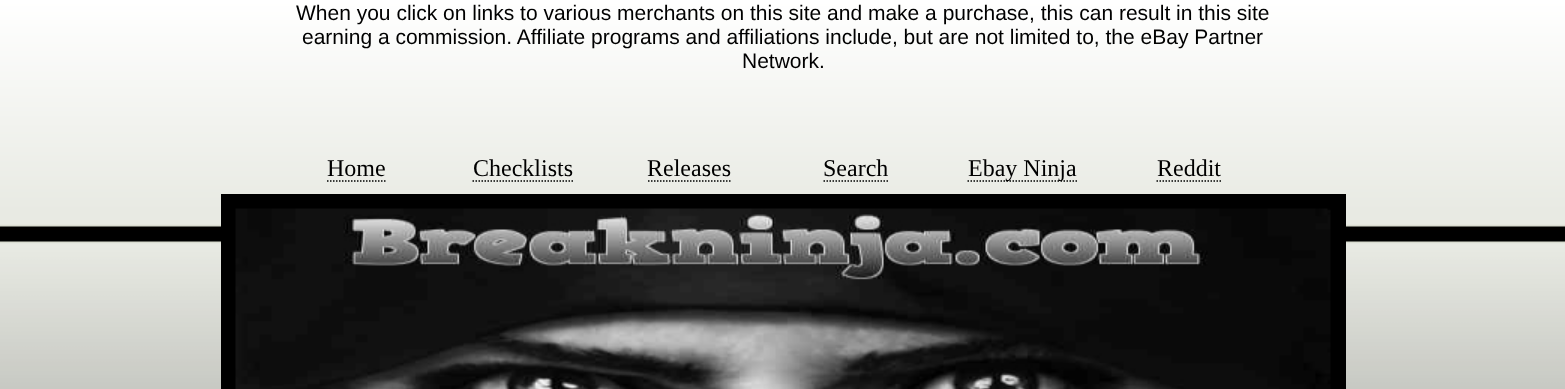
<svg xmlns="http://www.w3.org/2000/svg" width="1565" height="389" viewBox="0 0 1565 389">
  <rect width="100%" height="100%" fill="#ffffff"/>
  <image x="0" y="0" width="1565" height="389" href="img1.png"/>
  <text x="296" y="20" font-family="Liberation Sans" font-size="21" fill="#000000">When you click on links to various merchants on this site and make a purchase, this can result in this site</text>
  <text x="302" y="44" font-family="Liberation Sans" font-size="21" fill="#000000">earning a commission. Affiliate programs and affiliations include, but are not limited to, the eBay Partner</text>
  <text x="742" y="68" font-family="Liberation Sans" font-size="21" fill="#000000">Network.</text>
  <text x="327" y="176" font-family="Liberation Serif" font-size="24" fill="#000000">Home</text>
  <path d="M327 181H385.5" fill="none" stroke="#000000" stroke-width="1.5" stroke-dasharray="1.5 1.5"/>
  <text x="473" y="176" font-family="Liberation Serif" font-size="24" fill="#000000">Checklists</text>
  <path d="M472.5 181H573" fill="none" stroke="#000000" stroke-width="1.5" stroke-dasharray="1.5 1.5"/>
  <text x="647" y="176" font-family="Liberation Serif" font-size="24" fill="#000000">Releases</text>
  <path d="M648 181H730.5" fill="none" stroke="#000000" stroke-width="1.5" stroke-dasharray="1.5 1.5"/>
  <text x="823" y="176" font-family="Liberation Serif" font-size="24" fill="#000000">Search</text>
  <path d="M823.5 181H888" fill="none" stroke="#000000" stroke-width="1.5" stroke-dasharray="1.5 1.5"/>
  <path d="M967.5 181H1077" fill="none" stroke="#000000" stroke-width="1.5" stroke-dasharray="1.5 1.5"/>
  <text x="968" y="176" font-family="Liberation Serif" font-size="24" fill="#000000">Ebay Ninja</text>
  <text x="1157" y="176" font-family="Liberation Serif" font-size="24" fill="#000000">Reddit</text>
  <path d="M1156.5 181H1221" fill="none" stroke="#000000" stroke-width="1.5" stroke-dasharray="1.5 1.5"/>
  <rect x="221" y="194" width="1125" height="195" fill="#000000"/>
  <image x="235" y="208" width="1096" height="181" href="img2.png"/>
</svg>
